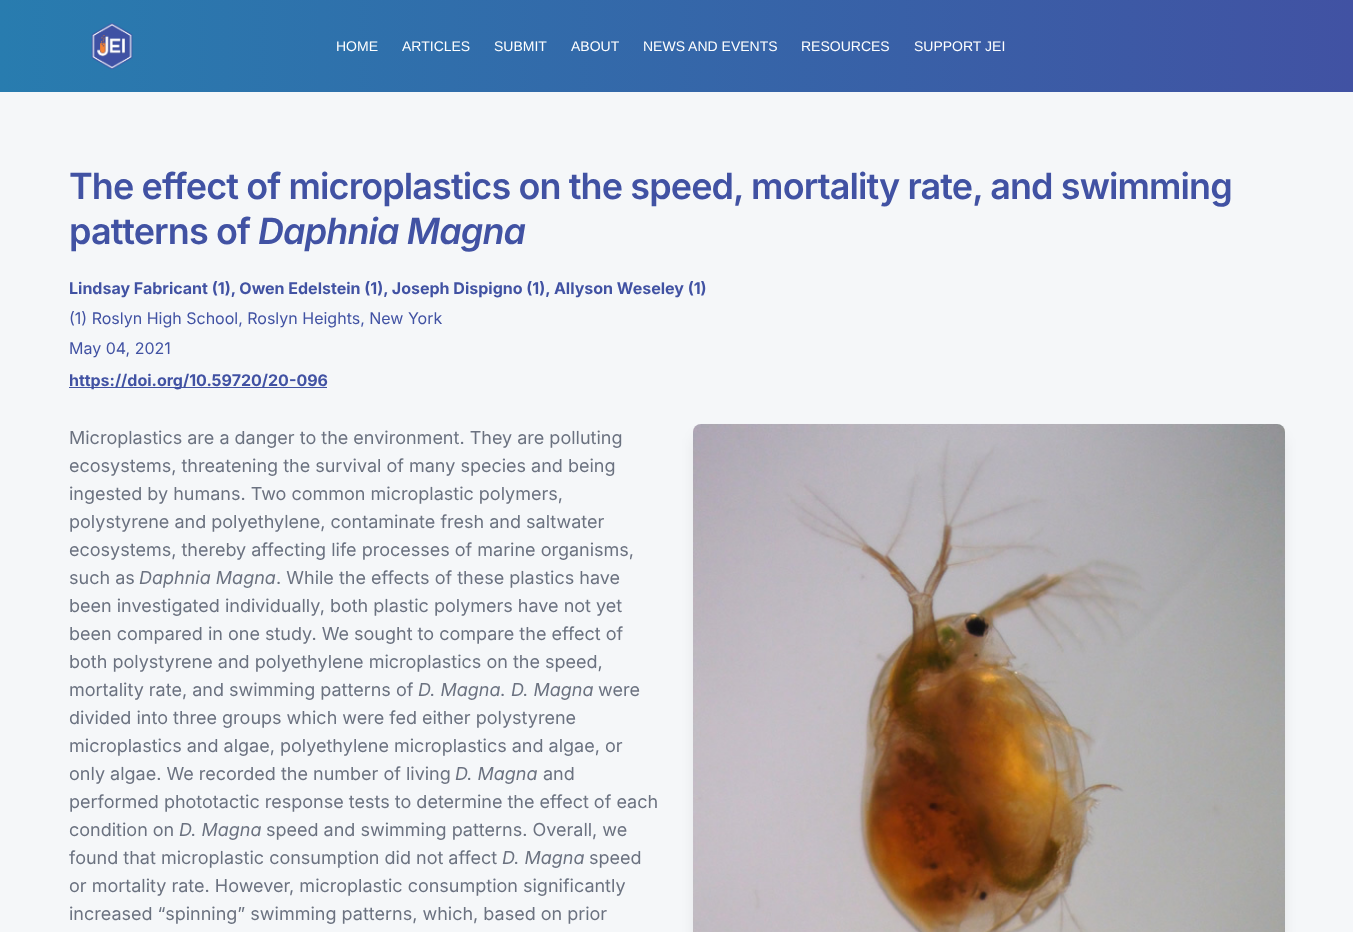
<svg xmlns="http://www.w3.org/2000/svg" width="1353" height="932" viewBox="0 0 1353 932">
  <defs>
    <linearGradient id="g1" gradientUnits="userSpaceOnUse" x1="0" y1="46" x2="1353" y2="46"><stop offset="0" stop-color="#287caf"/><stop offset="1" stop-color="#4152a3"/></linearGradient>
    <filter id="blur1" x="-50%" y="-200%" width="200%" height="500%"><feGaussianBlur stdDeviation="7.5"/></filter>
  </defs>
  <rect width="100%" height="100%" fill="#f5f7f9"/>
  <rect x="0" y="0" width="1353" height="92" fill="url(#g1)"/>
  <image x="91" y="23" width="42" height="47" href="img1.png"/>
  <text x="336" y="51" font-family="Liberation Sans" font-size="14" fill="#ffffff">HOME</text>
  <text x="402" y="51" font-family="Liberation Sans" font-size="14" fill="#ffffff">ARTICLES</text>
  <text x="494" y="51" font-family="Liberation Sans" font-size="14" fill="#ffffff">SUBMIT</text>
  <text x="571" y="51" font-family="Liberation Sans" font-size="14" fill="#ffffff">ABOUT</text>
  <text x="643" y="51" font-family="Liberation Sans" font-size="14" fill="#ffffff">NEWS AND EVENTS</text>
  <text x="801" y="51" font-family="Liberation Sans" font-size="14" fill="#ffffff">RESOURCES</text>
  <text x="914" y="51" font-family="Liberation Sans" font-size="14" fill="#ffffff">SUPPORT JEI</text>
  <text x="69" y="199" font-family="Inter" font-size="36" font-weight="600" letter-spacing="-0.9" fill="#4152a3">The effect of microplastics on the speed, mortality rate, and swimming</text>
  <text x="69" y="244" font-family="Inter" font-size="36" font-weight="600" letter-spacing="-0.9" fill="#4152a3">patterns of</text>
  <text x="258" y="244" font-family="Inter" font-size="36" font-weight="600" font-style="italic" letter-spacing="-0.9" fill="#4152a3">Daphnia Magna</text>
  <text x="69" y="294" font-family="Inter" font-size="16" font-weight="bold" fill="#4152a3">Lindsay Fabricant (1), Owen Edelstein (1), Joseph Dispigno (1), Allyson Weseley (1)</text>
  <text x="69" y="324" font-family="Inter" font-size="16" fill="#4152a3">(1) Roslyn High School, Roslyn Heights, New York</text>
  <text x="69" y="354" font-family="Inter" font-size="16" fill="#4152a3">May 04, 2021</text>
  <rect x="69" y="387" width="258" height="1" fill="#4152a3"/>
  <text x="69" y="386" font-family="Inter" font-size="16" font-weight="bold" fill="#4152a3">https://doi.org/10.59720/20-096</text>
  <text x="69" y="444" font-family="Inter" font-size="18" fill="#6b7280">Microplastics are a danger to the environment. They are polluting</text>
  <text x="69" y="472" font-family="Inter" font-size="18" fill="#6b7280">ecosystems, threatening the survival of many species and being</text>
  <text x="69" y="500" font-family="Inter" font-size="18" fill="#6b7280">ingested by humans. Two common microplastic polymers,</text>
  <text x="69" y="528" font-family="Inter" font-size="18" fill="#6b7280">polystyrene and polyethylene, contaminate fresh and saltwater</text>
  <text x="69" y="556" font-family="Inter" font-size="18" fill="#6b7280">ecosystems, thereby affecting life processes of marine organisms,</text>
  <text x="69" y="584" font-family="Inter" font-size="18" fill="#6b7280">such as</text>
  <text x="139" y="584" font-family="Inter" font-size="18" font-style="italic" fill="#6b7280">Daphnia Magna</text>
  <text x="276" y="584" font-family="Inter" font-size="18" fill="#6b7280">. While the effects of these plastics have</text>
  <text x="69" y="612" font-family="Inter" font-size="18" fill="#6b7280">been investigated individually, both plastic polymers have not yet</text>
  <text x="69" y="640" font-family="Inter" font-size="18" fill="#6b7280">been compared in one study. We sought to compare the effect of</text>
  <text x="69" y="668" font-family="Inter" font-size="18" fill="#6b7280">both polystyrene and polyethylene microplastics on the speed,</text>
  <text x="69" y="696" font-family="Inter" font-size="18" fill="#6b7280">mortality rate, and swimming patterns of</text>
  <text x="418" y="696" font-family="Inter" font-size="18" font-style="italic" fill="#6b7280">D. Magna</text>
  <text x="500" y="696" font-family="Inter" font-size="18" fill="#6b7280">.</text>
  <text x="511" y="696" font-family="Inter" font-size="18" font-style="italic" fill="#6b7280">D. Magna</text>
  <text x="598" y="696" font-family="Inter" font-size="18" fill="#6b7280">were</text>
  <text x="69" y="724" font-family="Inter" font-size="18" fill="#6b7280">divided into three groups which were fed either polystyrene</text>
  <text x="69" y="752" font-family="Inter" font-size="18" fill="#6b7280">microplastics and algae, polyethylene microplastics and algae, or</text>
  <text x="69" y="780" font-family="Inter" font-size="18" fill="#6b7280">only algae. We recorded the number of living</text>
  <text x="455" y="780" font-family="Inter" font-size="18" font-style="italic" fill="#6b7280">D. Magna</text>
  <text x="543" y="780" font-family="Inter" font-size="18" fill="#6b7280">and</text>
  <text x="69" y="808" font-family="Inter" font-size="18" fill="#6b7280">performed phototactic response tests to determine the effect of each</text>
  <text x="69" y="836" font-family="Inter" font-size="18" fill="#6b7280">condition on</text>
  <text x="179" y="836" font-family="Inter" font-size="18" font-style="italic" fill="#6b7280">D. Magna</text>
  <text x="266" y="836" font-family="Inter" font-size="18" fill="#6b7280">speed and swimming patterns. Overall, we</text>
  <text x="69" y="864" font-family="Inter" font-size="18" fill="#6b7280">found that microplastic consumption did not affect</text>
  <text x="502" y="864" font-family="Inter" font-size="18" font-style="italic" fill="#6b7280">D. Magna</text>
  <text x="589" y="864" font-family="Inter" font-size="18" fill="#6b7280">speed</text>
  <text x="69" y="892" font-family="Inter" font-size="18" fill="#6b7280">or mortality rate. However, microplastic consumption significantly</text>
  <text x="69" y="920" font-family="Inter" font-size="18" fill="#6b7280">increased “spinning” swimming patterns, which, based on prior</text>
  <rect x="696" y="437" width="586" height="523" rx="5" fill="#000000" fill-opacity="0.1" filter="url(#blur1)"/>
  <image x="693" y="424" width="592" height="508" href="img2.png"/>
</svg>
